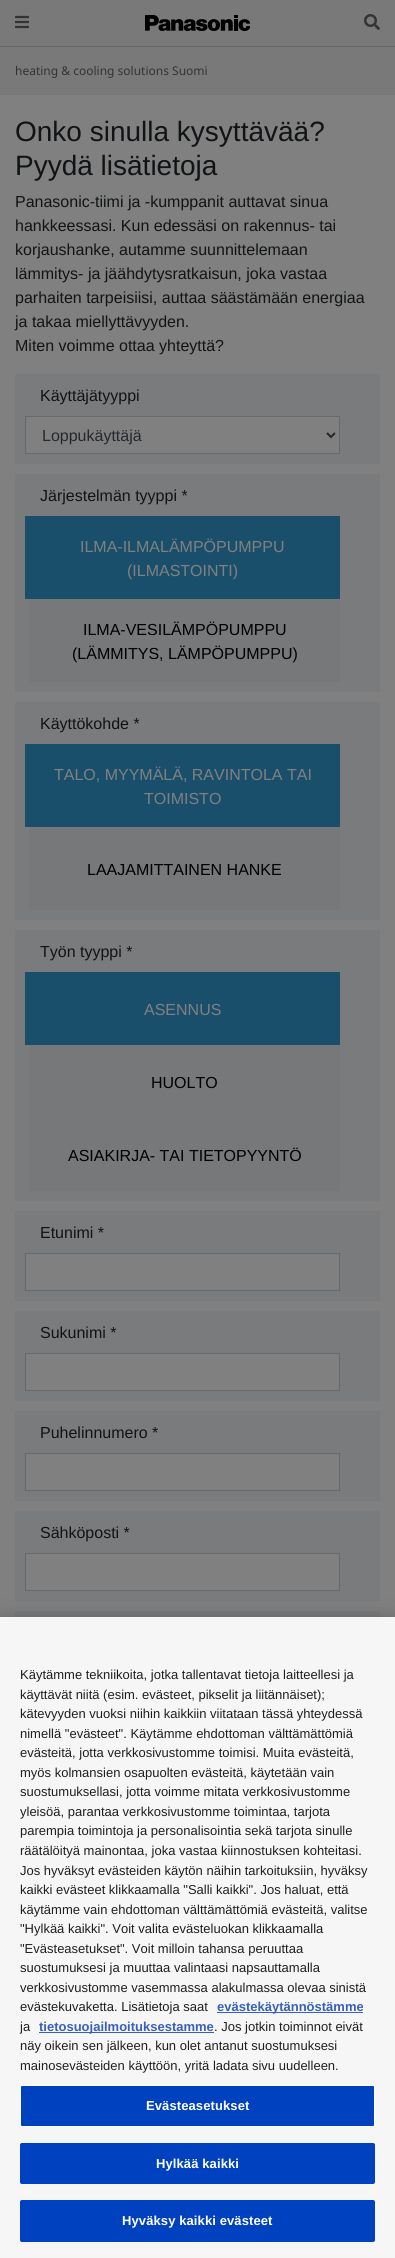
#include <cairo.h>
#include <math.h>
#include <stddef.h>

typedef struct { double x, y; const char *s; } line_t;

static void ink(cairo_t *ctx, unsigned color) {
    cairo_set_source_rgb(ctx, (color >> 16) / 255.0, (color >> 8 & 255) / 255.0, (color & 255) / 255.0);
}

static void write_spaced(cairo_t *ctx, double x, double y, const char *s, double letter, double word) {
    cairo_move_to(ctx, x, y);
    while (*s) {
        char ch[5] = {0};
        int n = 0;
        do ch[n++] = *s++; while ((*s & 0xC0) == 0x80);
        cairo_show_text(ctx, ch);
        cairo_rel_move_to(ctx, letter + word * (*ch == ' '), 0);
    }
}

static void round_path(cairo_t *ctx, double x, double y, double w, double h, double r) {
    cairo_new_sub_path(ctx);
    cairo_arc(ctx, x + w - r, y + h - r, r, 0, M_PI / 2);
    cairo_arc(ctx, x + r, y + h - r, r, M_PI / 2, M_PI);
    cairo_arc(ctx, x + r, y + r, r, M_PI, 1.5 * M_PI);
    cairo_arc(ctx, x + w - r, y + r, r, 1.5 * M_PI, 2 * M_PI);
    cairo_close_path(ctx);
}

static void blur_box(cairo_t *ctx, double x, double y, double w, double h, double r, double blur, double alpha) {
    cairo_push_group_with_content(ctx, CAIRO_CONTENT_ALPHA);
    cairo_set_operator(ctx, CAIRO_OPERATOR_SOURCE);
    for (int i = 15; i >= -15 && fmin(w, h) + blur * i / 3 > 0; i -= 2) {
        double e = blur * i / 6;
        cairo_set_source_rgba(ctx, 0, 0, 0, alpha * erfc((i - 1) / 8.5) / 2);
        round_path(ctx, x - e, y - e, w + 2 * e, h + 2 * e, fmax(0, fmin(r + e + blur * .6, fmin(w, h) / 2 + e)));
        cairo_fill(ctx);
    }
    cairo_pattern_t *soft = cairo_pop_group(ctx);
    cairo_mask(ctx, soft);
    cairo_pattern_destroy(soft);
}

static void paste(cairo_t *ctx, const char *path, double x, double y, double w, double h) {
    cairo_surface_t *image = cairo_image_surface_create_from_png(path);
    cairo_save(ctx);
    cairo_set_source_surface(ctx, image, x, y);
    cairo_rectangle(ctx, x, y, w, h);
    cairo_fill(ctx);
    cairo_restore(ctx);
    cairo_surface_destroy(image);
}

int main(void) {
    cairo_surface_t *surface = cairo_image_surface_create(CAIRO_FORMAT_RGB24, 395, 2258);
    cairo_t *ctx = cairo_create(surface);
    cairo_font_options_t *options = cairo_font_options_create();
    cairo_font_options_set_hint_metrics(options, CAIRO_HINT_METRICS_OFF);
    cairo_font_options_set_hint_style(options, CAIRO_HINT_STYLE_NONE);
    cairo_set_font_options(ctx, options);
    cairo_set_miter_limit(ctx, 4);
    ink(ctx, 0x808080);
    cairo_paint(ctx);
    ink(ctx, 0x797979);
    cairo_rectangle(ctx, 0, 0, 395, 46);
    cairo_fill(ctx);
    ink(ctx, 0x666666);
    cairo_rectangle(ctx, 0, 46, 395, 1);
    cairo_fill(ctx);
    paste(ctx, "media/1.png", 15, 15, 14, 14);
    paste(ctx, "media/2.png", 145, 15, 105, 16);
    paste(ctx, "media/3.png", 364, 14, 16, 16);
    ink(ctx, 0x797979);
    cairo_rectangle(ctx, 0, 47, 395, 48);
    cairo_fill(ctx);
    cairo_select_font_face(ctx, "Noto Sans", CAIRO_FONT_SLANT_NORMAL, CAIRO_FONT_WEIGHT_NORMAL);
    cairo_set_font_size(ctx, 12);
    ink(ctx, 0x333333);
    cairo_move_to(ctx, 15, 75);
    cairo_show_text(ctx, "heating & cooling solutions Suomi");
    cairo_select_font_face(ctx, "Liberation Sans", CAIRO_FONT_SLANT_NORMAL, CAIRO_FONT_WEIGHT_NORMAL);
    cairo_set_font_size(ctx, 28);
    ink(ctx, 0x111315);
    cairo_move_to(ctx, 15, 141);
    cairo_show_text(ctx, "Onko sinulla kysyttävää?");
    cairo_move_to(ctx, 15, 175);
    cairo_show_text(ctx, "Pyydä lisätietoja");
    cairo_set_font_size(ctx, 16);
    {
        static const line_t items[] = {
            {15, 207, "Panasonic-tiimi ja -kumppanit auttavat sinua"},
            {15, 231, "hankkeessasi. Kun edessäsi on rakennus- tai"},
            {15, 255, "korjaushanke, autamme suunnittelemaan"},
            {15, 279, "lämmitys- ja jäähdytysratkaisun, joka vastaa"},
            {15, 303, "parhaiten tarpeisiisi, auttaa säästämään energiaa"},
            {15, 327, "ja takaa miellyttävyyden."},
            {15, 351, "Miten voimme ottaa yhteyttä?"},
        };
        for (size_t i = 0; i < sizeof items / sizeof *items; i++) {
            cairo_move_to(ctx, items[i].x, items[i].y);
            cairo_show_text(ctx, items[i].s);
        }
    }
    ink(ctx, 0x7A7B7C);
    cairo_rectangle(ctx, 15, 374, 365, 90);
    cairo_fill(ctx);
    ink(ctx, 0x111315);
    cairo_move_to(ctx, 40, 401);
    cairo_show_text(ctx, "Käyttäjätyyppi");
    ink(ctx, 0x808080);
    cairo_rectangle(ctx, 25.5, 416.5, 314, 37);
    cairo_fill_preserve(ctx);
    ink(ctx, 0x676A6D);
    cairo_set_line_width(ctx, 1);
    cairo_stroke(ctx);
    cairo_new_path(ctx);
    cairo_move_to(ctx, 327, 433);
    cairo_line_to(ctx, 331, 437);
    cairo_line_to(ctx, 335, 433);
    ink(ctx, 0x25282C);
    cairo_set_line_width(ctx, 2);
    cairo_stroke(ctx);
    cairo_move_to(ctx, 42, 441);
    cairo_show_text(ctx, "Loppukäyttäjä");
    ink(ctx, 0x7A7B7C);
    cairo_rectangle(ctx, 15, 474, 365, 218);
    cairo_fill(ctx);
    ink(ctx, 0x111315);
    cairo_move_to(ctx, 40, 501);
    cairo_show_text(ctx, "Järjestelmän tyyppi *");
    ink(ctx, 0x1A4F6B);
    cairo_rectangle(ctx, 25, 516, 315, 83);
    cairo_fill(ctx);
    ink(ctx, 0x808080);
    cairo_move_to(ctx, 80, 552);
    cairo_show_text(ctx, "ILMA-ILMALÄMPÖPUMPPU");
    cairo_move_to(ctx, 127, 576);
    cairo_show_text(ctx, "(ILMASTOINTI)");
    ink(ctx, 0x767879);
    cairo_rectangle(ctx, 29, 599, 311, 83);
    cairo_fill(ctx);
    ink(ctx, 0x000000);
    cairo_move_to(ctx, 83, 635);
    cairo_show_text(ctx, "ILMA-VESILÄMPÖPUMPPU");
    cairo_move_to(ctx, 72, 659);
    cairo_show_text(ctx, "(LÄMMITYS, LÄMPÖPUMPPU)");
    ink(ctx, 0x7A7B7C);
    cairo_rectangle(ctx, 15, 702, 365, 218);
    cairo_fill(ctx);
    ink(ctx, 0x111315);
    cairo_move_to(ctx, 40, 729);
    cairo_show_text(ctx, "Käyttökohde *");
    ink(ctx, 0x1A4F6B);
    cairo_rectangle(ctx, 25, 744, 315, 83);
    cairo_fill(ctx);
    ink(ctx, 0x808080);
    cairo_move_to(ctx, 54, 780);
    cairo_show_text(ctx, "TALO, MYYMÄLÄ, RAVINTOLA TAI");
    cairo_move_to(ctx, 144, 804);
    cairo_show_text(ctx, "TOIMISTO");
    ink(ctx, 0x767879);
    cairo_rectangle(ctx, 29, 827, 311, 83);
    cairo_fill(ctx);
    ink(ctx, 0x000000);
    cairo_move_to(ctx, 87, 875);
    cairo_show_text(ctx, "LAAJAMITTAINEN HANKE");
    ink(ctx, 0x7A7B7C);
    cairo_rectangle(ctx, 15, 930, 365, 271);
    cairo_fill(ctx);
    ink(ctx, 0x111315);
    cairo_move_to(ctx, 40, 957);
    cairo_show_text(ctx, "Työn tyyppi *");
    ink(ctx, 0x1A4F6B);
    cairo_rectangle(ctx, 25, 972, 315, 73);
    cairo_fill(ctx);
    ink(ctx, 0x808080);
    cairo_move_to(ctx, 144, 1015);
    cairo_show_text(ctx, "ASENNUS");
    ink(ctx, 0x767879);
    cairo_rectangle(ctx, 29, 1045, 311, 146);
    cairo_fill(ctx);
    ink(ctx, 0x000000);
    cairo_move_to(ctx, 151, 1088);
    cairo_show_text(ctx, "HUOLTO");
    cairo_move_to(ctx, 68, 1161);
    cairo_show_text(ctx, "ASIAKIRJA- TAI TIETOPYYNTÖ");
    ink(ctx, 0x7A7B7C);
    cairo_rectangle(ctx, 15, 1211, 365, 90);
    cairo_fill(ctx);
    ink(ctx, 0x111315);
    cairo_move_to(ctx, 40, 1238);
    cairo_show_text(ctx, "Etunimi *");
    ink(ctx, 0x808080);
    cairo_rectangle(ctx, 25.5, 1253.5, 314, 37);
    cairo_fill_preserve(ctx);
    ink(ctx, 0x676A6D);
    cairo_set_line_width(ctx, 1);
    cairo_stroke(ctx);
    ink(ctx, 0x7A7B7C);
    cairo_rectangle(ctx, 15, 1311, 365, 90);
    cairo_fill(ctx);
    ink(ctx, 0x111315);
    cairo_move_to(ctx, 40, 1338);
    cairo_show_text(ctx, "Sukunimi *");
    ink(ctx, 0x808080);
    cairo_rectangle(ctx, 25.5, 1353.5, 314, 37);
    cairo_fill_preserve(ctx);
    ink(ctx, 0x676A6D);
    cairo_stroke(ctx);
    ink(ctx, 0x7A7B7C);
    cairo_rectangle(ctx, 15, 1411, 365, 90);
    cairo_fill(ctx);
    ink(ctx, 0x111315);
    cairo_move_to(ctx, 40, 1438);
    cairo_show_text(ctx, "Puhelinnumero *");
    ink(ctx, 0x808080);
    cairo_rectangle(ctx, 25.5, 1453.5, 314, 37);
    cairo_fill_preserve(ctx);
    ink(ctx, 0x676A6D);
    cairo_stroke(ctx);
    ink(ctx, 0x7A7B7C);
    cairo_rectangle(ctx, 15, 1511, 365, 90);
    cairo_fill(ctx);
    ink(ctx, 0x111315);
    cairo_move_to(ctx, 40, 1538);
    cairo_show_text(ctx, "Sähköposti *");
    ink(ctx, 0x808080);
    cairo_rectangle(ctx, 25.5, 1553.5, 314, 37);
    cairo_fill_preserve(ctx);
    ink(ctx, 0x676A6D);
    cairo_stroke(ctx);
    ink(ctx, 0x7A7B7C);
    cairo_rectangle(ctx, 15, 1611, 365, 6);
    cairo_fill(ctx);
    ink(ctx, 0x000000);
    blur_box(ctx, 0, 1617, 395, 641, 0, 9, 0.2);
    ink(ctx, 0xF6F6F6);
    cairo_rectangle(ctx, 0, 1617, 395, 641);
    cairo_fill(ctx);
    cairo_set_font_size(ctx, 13);
    ink(ctx, 0x1F1F1F);
    {
        static const line_t items[] = {
            {20, 1679, "Käytämme tekniikoita, jotka tallentavat tietoja laitteellesi ja"},
            {20, 1699, "käyttävät niitä (esim. evästeet, pikselit ja liitännäiset);"},
            {20, 1718, "kätevyyden vuoksi niihin kaikkiin viitataan tässä yhteydessä"},
            {20, 1738, "nimellä \"evästeet\". Käytämme ehdottoman välttämättömiä"},
            {20, 1757, "evästeitä, jotta verkkosivustomme toimisi. Muita evästeitä,"},
            {20, 1777, "myös kolmansien osapuolten evästeitä, käytetään vain"},
            {20, 1796, "suostumuksellasi, jotta voimme mitata verkkosivustomme"},
            {20, 1816, "yleisöä, parantaa verkkosivustomme toimintaa, tarjota"},
            {20, 1835, "parempia toimintoja ja personalisointia sekä tarjota sinulle"},
            {20, 1855, "räätälöityä mainontaa, joka vastaa kiinnostuksen kohteitasi."},
            {20, 1875, "Jos hyväksyt evästeiden käytön näihin tarkoituksiin, hyväksy"},
            {20, 1894, "kaikki evästeet klikkaamalla \"Salli kaikki\". Jos haluat, että"},
            {20, 1914, "käytämme vain ehdottoman välttämättömiä evästeitä, valitse"},
            {20, 1933, "\"Hylkää kaikki\". Voit valita evästeluokan klikkaamalla"},
            {20, 1953, "\"Evästeasetukset\". Voit milloin tahansa peruuttaa"},
            {20, 1972, "suostumuksesi ja muuttaa valintaasi napsauttamalla"},
            {20, 1992, "verkkosivustomme vasemmassa alakulmassa olevaa sinistä"},
            {20, 2011, "evästekuvaketta. Lisätietoja saat"},
        };
        for (size_t i = 0; i < sizeof items / sizeof *items; i++) {
            cairo_move_to(ctx, items[i].x, items[i].y);
            cairo_show_text(ctx, items[i].s);
        }
    }
    ink(ctx, 0x3860BE);
    cairo_rectangle(ctx, 217, 2012, 146, 1);
    cairo_fill(ctx);
    cairo_select_font_face(ctx, "Liberation Sans", CAIRO_FONT_SLANT_NORMAL, CAIRO_FONT_WEIGHT_BOLD);
    cairo_move_to(ctx, 217, 2011);
    cairo_show_text(ctx, "evästekäytännöstämme");
    cairo_select_font_face(ctx, "Liberation Sans", CAIRO_FONT_SLANT_NORMAL, CAIRO_FONT_WEIGHT_NORMAL);
    ink(ctx, 0x1F1F1F);
    cairo_move_to(ctx, 20, 2031);
    cairo_show_text(ctx, "ja");
    ink(ctx, 0x3860BE);
    cairo_rectangle(ctx, 39, 2032, 175, 1);
    cairo_fill(ctx);
    cairo_select_font_face(ctx, "Liberation Sans", CAIRO_FONT_SLANT_NORMAL, CAIRO_FONT_WEIGHT_BOLD);
    cairo_move_to(ctx, 39, 2031);
    cairo_show_text(ctx, "tietosuojailmoituksestamme");
    cairo_select_font_face(ctx, "Liberation Sans", CAIRO_FONT_SLANT_NORMAL, CAIRO_FONT_WEIGHT_NORMAL);
    ink(ctx, 0x1F1F1F);
    {
        static const line_t items[] = {
            {214, 2031, ". Jos jotkin toiminnot eivät"},
            {20, 2050, "näy oikein sen jälkeen, kun olet antanut suostumuksesi"},
            {20, 2070, "mainosevästeiden käyttöön, yritä ladata sivu uudelleen."},
        };
        for (size_t i = 0; i < sizeof items / sizeof *items; i++) {
            cairo_move_to(ctx, items[i].x, items[i].y);
            cairo_show_text(ctx, items[i].s);
        }
    }
    ink(ctx, 0x0041C0);
    round_path(ctx, 20.5, 2085.5, 354, 41, 1.5);
    cairo_fill_preserve(ctx);
    ink(ctx, 0xFFFFFF);
    cairo_stroke(ctx);
    cairo_select_font_face(ctx, "Liberation Sans", CAIRO_FONT_SLANT_NORMAL, CAIRO_FONT_WEIGHT_BOLD);
    write_spaced(ctx, 146, 2110, "Evästeasetukset", 0.1, 0);
    ink(ctx, 0x0041C0);
    round_path(ctx, 20.5, 2143.5, 354, 40, 1.5);
    cairo_fill_preserve(ctx);
    cairo_stroke(ctx);
    ink(ctx, 0xFFFFFF);
    write_spaced(ctx, 156, 2168, "Hylkää kaikki", 0.1, 0);
    ink(ctx, 0x0041C0);
    round_path(ctx, 20.5, 2200.5, 354, 41, 1.5);
    cairo_fill_preserve(ctx);
    cairo_stroke(ctx);
    ink(ctx, 0xFFFFFF);
    write_spaced(ctx, 122, 2225, "Hyväksy kaikki evästeet", 0.1, 0);
    cairo_surface_write_to_png(surface, "image.png");
    cairo_font_options_destroy(options);
    cairo_destroy(ctx);
    cairo_surface_destroy(surface);
    return 0;
}
